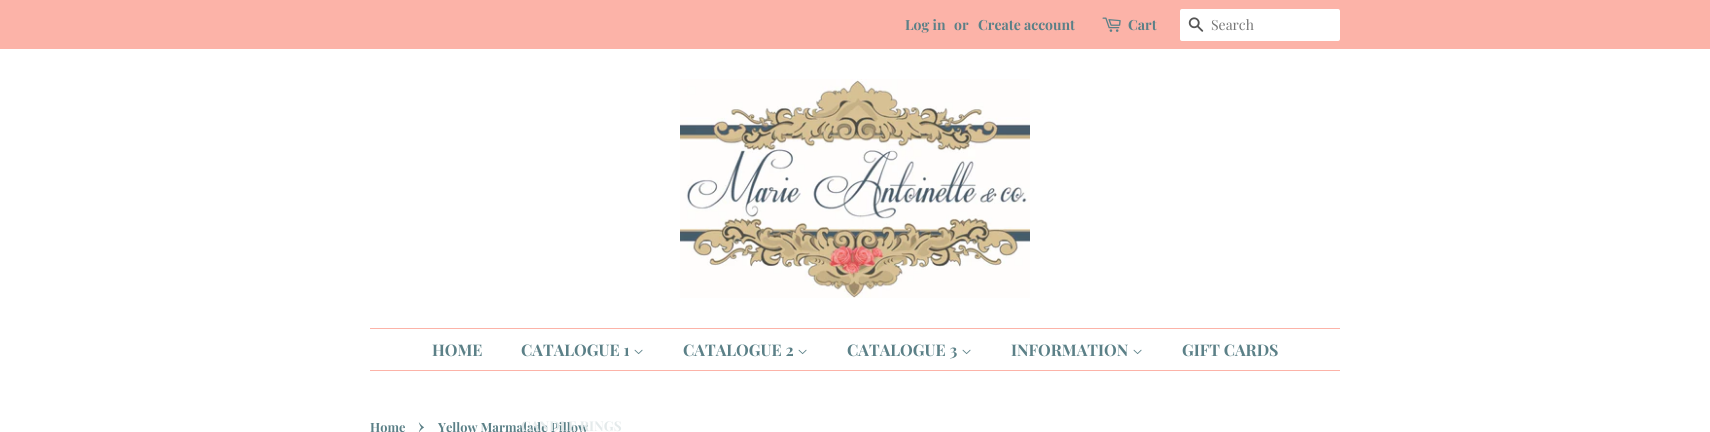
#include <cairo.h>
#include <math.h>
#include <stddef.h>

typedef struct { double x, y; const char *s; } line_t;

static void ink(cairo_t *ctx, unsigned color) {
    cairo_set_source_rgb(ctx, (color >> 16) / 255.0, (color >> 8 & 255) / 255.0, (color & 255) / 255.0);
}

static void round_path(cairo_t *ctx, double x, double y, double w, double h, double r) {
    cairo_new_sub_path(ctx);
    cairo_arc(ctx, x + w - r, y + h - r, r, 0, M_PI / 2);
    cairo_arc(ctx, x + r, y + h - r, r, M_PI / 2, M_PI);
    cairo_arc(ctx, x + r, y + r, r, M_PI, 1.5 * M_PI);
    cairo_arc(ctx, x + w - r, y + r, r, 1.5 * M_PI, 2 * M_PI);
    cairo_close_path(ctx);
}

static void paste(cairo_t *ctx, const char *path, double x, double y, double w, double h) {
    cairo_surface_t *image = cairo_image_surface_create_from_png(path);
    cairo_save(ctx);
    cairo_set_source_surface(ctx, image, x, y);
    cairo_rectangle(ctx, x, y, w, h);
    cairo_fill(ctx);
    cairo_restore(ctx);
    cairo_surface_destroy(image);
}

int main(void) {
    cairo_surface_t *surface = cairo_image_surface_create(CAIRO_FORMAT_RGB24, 1710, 432);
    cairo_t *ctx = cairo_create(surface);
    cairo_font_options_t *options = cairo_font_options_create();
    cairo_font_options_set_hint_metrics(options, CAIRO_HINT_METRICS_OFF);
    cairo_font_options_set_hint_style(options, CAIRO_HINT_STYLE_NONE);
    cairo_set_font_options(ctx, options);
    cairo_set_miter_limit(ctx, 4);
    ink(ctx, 0xFFFFFF);
    cairo_paint(ctx);
    ink(ctx, 0xFCB3A8);
    cairo_rectangle(ctx, 0, 0, 1710, 49);
    cairo_fill(ctx);
    cairo_select_font_face(ctx, "Playfair Display", CAIRO_FONT_SLANT_NORMAL, CAIRO_FONT_WEIGHT_BOLD);
    cairo_set_font_size(ctx, 14);
    ink(ctx, 0x5B8087);
    {
        static const line_t items[] = {
            {905, 30, "Log in"},
            {954, 30, "or"},
            {978, 30, "Create account"},
        };
        for (size_t i = 0; i < sizeof items / sizeof *items; i++) {
            cairo_move_to(ctx, items[i].x, items[i].y);
            cairo_show_text(ctx, items[i].s);
        }
    }
    paste(ctx, "media/1.png", 1102, 17, 19, 15);
    cairo_move_to(ctx, 1128, 30);
    cairo_show_text(ctx, "Cart");
    ink(ctx, 0xFFFFFF);
    round_path(ctx, 1180, 9, 160, 32, 2);
    cairo_fill(ctx);
    paste(ctx, "media/2.png", 1188, 17, 16, 15);
    cairo_select_font_face(ctx, "Playfair Display", CAIRO_FONT_SLANT_NORMAL, CAIRO_FONT_WEIGHT_NORMAL);
    ink(ctx, 0x757575);
    cairo_move_to(ctx, 1211, 30);
    cairo_show_text(ctx, "Search");
    paste(ctx, "media/3.png", 680, 79, 350, 219);
    ink(ctx, 0xFCB3A8);
    cairo_rectangle(ctx, 370, 328, 970, 1);
    cairo_fill(ctx);
    cairo_rectangle(ctx, 370, 370, 970, 1);
    cairo_fill(ctx);
    cairo_select_font_face(ctx, "Playfair Display", CAIRO_FONT_SLANT_NORMAL, CAIRO_FONT_WEIGHT_BOLD);
    cairo_set_font_size(ctx, 16);
    ink(ctx, 0x5B8087);
    cairo_move_to(ctx, 432, 356);
    cairo_show_text(ctx, "HOME");
    cairo_move_to(ctx, 521, 356);
    cairo_show_text(ctx, "CATALOGUE 1");
    paste(ctx, "media/4.png", 634, 349, 9, 6);
    cairo_set_font_size(ctx, 12.75);
    cairo_move_to(ctx, 438, 432);
    cairo_show_text(ctx, "Yellow Marmalade Pillow");
    cairo_set_font_size(ctx, 13.5);
    ink(ctx, 0xE4EAEB);
    cairo_move_to(ctx, 521, 431);
    cairo_show_text(ctx, "CANDLE RINGS");
    cairo_set_font_size(ctx, 16);
    ink(ctx, 0x5B8087);
    cairo_move_to(ctx, 683, 356);
    cairo_show_text(ctx, "CATALOGUE 2");
    paste(ctx, "media/4.png", 798, 349, 9, 6);
    cairo_move_to(ctx, 847, 356);
    cairo_show_text(ctx, "CATALOGUE 3");
    paste(ctx, "media/4.png", 962, 349, 9, 6);
    cairo_move_to(ctx, 1011, 356);
    cairo_show_text(ctx, "INFORMATION");
    paste(ctx, "media/4.png", 1133, 349, 9, 6);
    cairo_move_to(ctx, 1182, 356);
    cairo_show_text(ctx, "GIFT CARDS");
    cairo_set_font_size(ctx, 12.75);
    cairo_move_to(ctx, 370, 432);
    cairo_show_text(ctx, "Home");
    cairo_set_font_size(ctx, 18);
    cairo_move_to(ctx, 418, 432);
    cairo_show_text(ctx, "›");
    cairo_surface_write_to_png(surface, "image.png");
    cairo_font_options_destroy(options);
    cairo_destroy(ctx);
    cairo_surface_destroy(surface);
    return 0;
}
